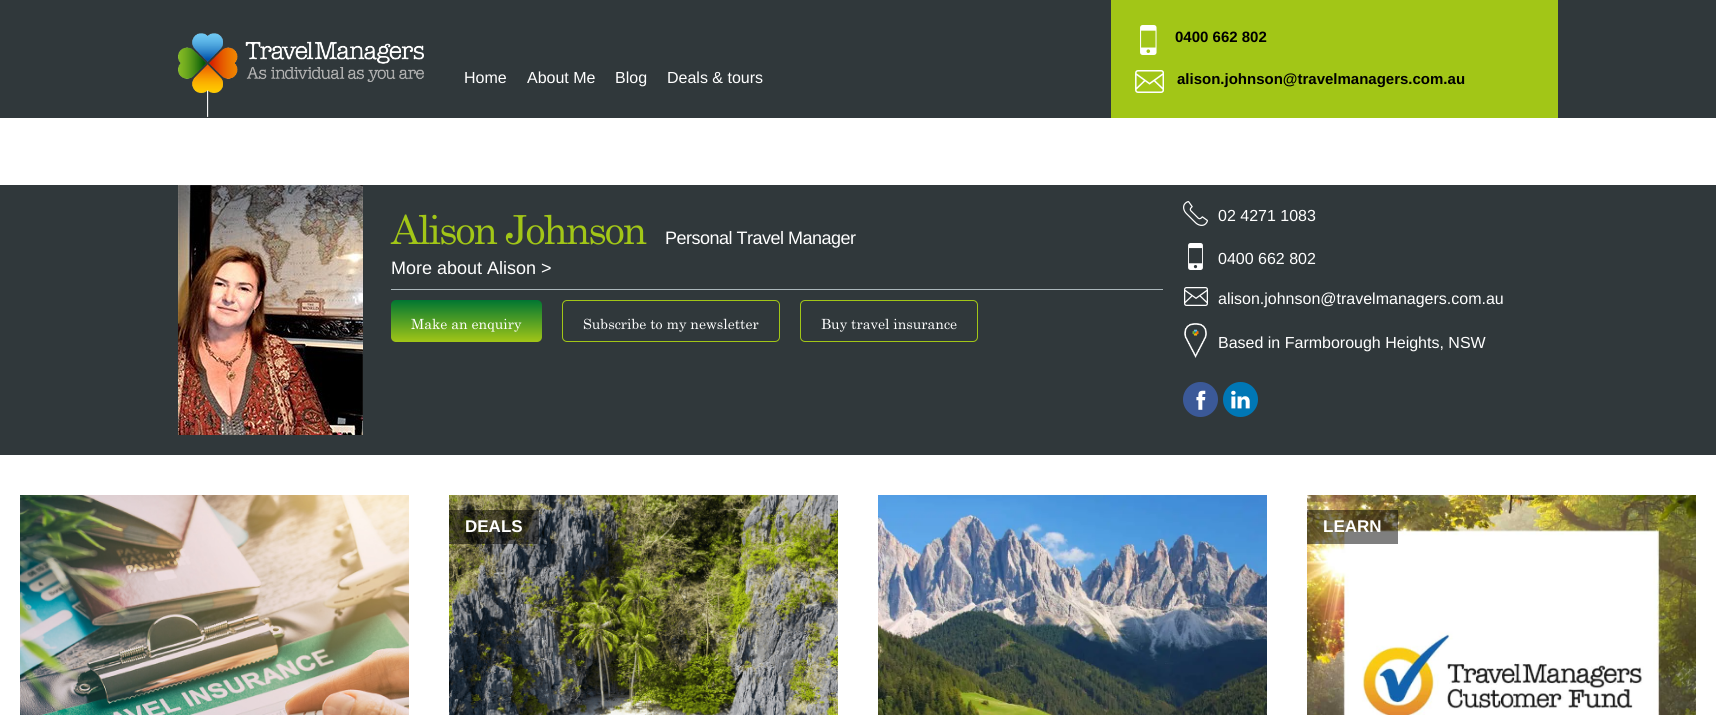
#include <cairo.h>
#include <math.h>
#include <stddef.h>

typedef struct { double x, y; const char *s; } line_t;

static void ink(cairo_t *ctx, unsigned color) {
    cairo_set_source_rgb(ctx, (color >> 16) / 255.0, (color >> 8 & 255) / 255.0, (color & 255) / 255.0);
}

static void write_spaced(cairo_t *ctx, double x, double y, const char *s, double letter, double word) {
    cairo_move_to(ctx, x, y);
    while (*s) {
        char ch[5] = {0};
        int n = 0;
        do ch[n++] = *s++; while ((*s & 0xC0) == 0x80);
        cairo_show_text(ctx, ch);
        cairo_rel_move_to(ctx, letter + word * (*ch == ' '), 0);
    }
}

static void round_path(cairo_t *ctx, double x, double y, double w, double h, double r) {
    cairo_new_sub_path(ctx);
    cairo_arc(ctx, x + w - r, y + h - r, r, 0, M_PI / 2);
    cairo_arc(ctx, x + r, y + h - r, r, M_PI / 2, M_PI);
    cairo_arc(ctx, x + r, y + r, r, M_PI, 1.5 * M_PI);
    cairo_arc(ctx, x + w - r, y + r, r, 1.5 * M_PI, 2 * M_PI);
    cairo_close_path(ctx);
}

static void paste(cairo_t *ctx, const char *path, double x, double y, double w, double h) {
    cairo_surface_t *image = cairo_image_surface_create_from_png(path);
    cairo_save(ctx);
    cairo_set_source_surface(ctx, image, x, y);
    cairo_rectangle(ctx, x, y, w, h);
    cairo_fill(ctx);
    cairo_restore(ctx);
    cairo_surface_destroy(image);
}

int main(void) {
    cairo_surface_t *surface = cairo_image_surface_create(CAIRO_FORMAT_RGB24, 1716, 715);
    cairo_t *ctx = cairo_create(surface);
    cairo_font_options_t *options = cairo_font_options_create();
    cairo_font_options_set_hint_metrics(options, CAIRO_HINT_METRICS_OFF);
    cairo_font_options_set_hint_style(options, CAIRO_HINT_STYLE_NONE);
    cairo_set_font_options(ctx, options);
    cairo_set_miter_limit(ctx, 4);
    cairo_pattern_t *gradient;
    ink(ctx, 0xFFFFFF);
    cairo_paint(ctx);
    ink(ctx, 0x30383B);
    cairo_rectangle(ctx, 0, 0, 1716, 118);
    cairo_fill(ctx);
    paste(ctx, "media/1.png", 178, 33, 246, 84);
    cairo_select_font_face(ctx, "Liberation Sans", CAIRO_FONT_SLANT_NORMAL, CAIRO_FONT_WEIGHT_NORMAL);
    cairo_set_font_size(ctx, 16);
    ink(ctx, 0xFFFFFF);
    {
        static const line_t items[] = {
            {464, 83, "Home"},
            {527, 83, "About Me"},
            {615, 83, "Blog"},
            {667, 83, "Deals & tours"},
        };
        for (size_t i = 0; i < sizeof items / sizeof *items; i++) {
            cairo_move_to(ctx, items[i].x, items[i].y);
            cairo_show_text(ctx, items[i].s);
        }
    }
    ink(ctx, 0xA2C617);
    cairo_rectangle(ctx, 1111, 0, 447, 118);
    cairo_fill(ctx);
    paste(ctx, "media/2.png", 1140, 25, 17, 30);
    cairo_select_font_face(ctx, "Liberation Sans", CAIRO_FONT_SLANT_NORMAL, CAIRO_FONT_WEIGHT_BOLD);
    cairo_set_font_size(ctx, 15);
    ink(ctx, 0x000000);
    cairo_move_to(ctx, 1175, 42);
    cairo_show_text(ctx, "0400 662 802");
    paste(ctx, "media/3.png", 1135, 70, 29, 23);
    cairo_move_to(ctx, 1177, 84);
    cairo_show_text(ctx, "alison.johnson@travelmanagers.com.au");
    ink(ctx, 0x30383B);
    cairo_rectangle(ctx, 0, 185, 1716, 270);
    cairo_fill(ctx);
    paste(ctx, "media/4.png", 178, 185, 185, 250);
    cairo_select_font_face(ctx, "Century", CAIRO_FONT_SLANT_NORMAL, CAIRO_FONT_WEIGHT_NORMAL);
    cairo_set_font_size(ctx, 40);
    ink(ctx, 0xA2C617);
    write_spaced(ctx, 391, 244, "Alison Johnson", -2, 0);
    cairo_select_font_face(ctx, "Liberation Sans", CAIRO_FONT_SLANT_NORMAL, CAIRO_FONT_WEIGHT_NORMAL);
    cairo_set_font_size(ctx, 18);
    ink(ctx, 0xFFFFFF);
    write_spaced(ctx, 665, 244, "Personal Travel Manager", -0.5, 0);
    cairo_move_to(ctx, 391, 274);
    cairo_show_text(ctx, "More about Alison >");
    ink(ctx, 0xABB7BB);
    cairo_rectangle(ctx, 391, 289, 772, 1);
    cairo_fill(ctx);
    gradient = cairo_pattern_create_linear(467, 300, 467, 342);
    cairo_pattern_add_color_stop_rgba(gradient, 0, 0, 0.463, 0.196, 1);
    cairo_pattern_add_color_stop_rgba(gradient, 1, 0.635, 0.776, 0.09, 1);
    cairo_set_source(ctx, gradient);
    cairo_pattern_destroy(gradient);
    round_path(ctx, 391, 300, 151, 42, 5);
    cairo_fill(ctx);
    cairo_select_font_face(ctx, "Century", CAIRO_FONT_SLANT_NORMAL, CAIRO_FONT_WEIGHT_NORMAL);
    cairo_set_font_size(ctx, 14);
    ink(ctx, 0xFFFFFF);
    cairo_move_to(ctx, 411, 329);
    cairo_show_text(ctx, "Make an enquiry");
    round_path(ctx, 562.5, 300.5, 217, 41, 4.5);
    ink(ctx, 0xA2C617);
    cairo_set_line_width(ctx, 1);
    cairo_stroke(ctx);
    ink(ctx, 0xFFFFFF);
    cairo_move_to(ctx, 583, 329);
    cairo_show_text(ctx, "Subscribe to my newsletter");
    round_path(ctx, 800.5, 300.5, 177, 41, 4.5);
    ink(ctx, 0xA2C617);
    cairo_stroke(ctx);
    ink(ctx, 0xFFFFFF);
    cairo_move_to(ctx, 821, 329);
    cairo_show_text(ctx, "Buy travel insurance");
    paste(ctx, "media/5.png", 1183, 201, 25, 25);
    cairo_select_font_face(ctx, "Liberation Sans", CAIRO_FONT_SLANT_NORMAL, CAIRO_FONT_WEIGHT_NORMAL);
    cairo_set_font_size(ctx, 16);
    cairo_move_to(ctx, 1218, 221);
    cairo_show_text(ctx, "02 4271 1083");
    paste(ctx, "media/6.png", 1188, 243, 15, 27);
    cairo_move_to(ctx, 1218, 264);
    cairo_show_text(ctx, "0400 662 802");
    paste(ctx, "media/7.png", 1184, 287, 24, 19);
    cairo_move_to(ctx, 1218, 304);
    cairo_show_text(ctx, "alison.johnson@travelmanagers.com.au");
    paste(ctx, "media/8.png", 1184, 323, 23, 35);
    cairo_move_to(ctx, 1218, 348);
    cairo_show_text(ctx, "Based in Farmborough Heights, NSW");
    paste(ctx, "media/9.png", 1183, 382, 35, 35);
    paste(ctx, "media/10.png", 1223, 382, 35, 35);
    paste(ctx, "media/11.png", 20, 495, 389, 220);
    paste(ctx, "media/12.png", 449, 495, 389, 220);
    cairo_set_source_rgba(ctx, 0, 0, 0, 0.5);
    cairo_rectangle(ctx, 449, 510, 90, 34);
    cairo_fill(ctx);
    cairo_select_font_face(ctx, "Liberation Sans", CAIRO_FONT_SLANT_NORMAL, CAIRO_FONT_WEIGHT_BOLD);
    cairo_set_font_size(ctx, 17);
    ink(ctx, 0xFFFFFF);
    cairo_move_to(ctx, 465, 532);
    cairo_show_text(ctx, "DEALS");
    paste(ctx, "media/13.png", 878, 495, 389, 220);
    paste(ctx, "media/14.png", 1307, 495, 389, 220);
    cairo_set_source_rgba(ctx, 0, 0, 0, 0.5);
    cairo_rectangle(ctx, 1307, 510, 91, 34);
    cairo_fill(ctx);
    ink(ctx, 0xFFFFFF);
    cairo_move_to(ctx, 1323, 532);
    cairo_show_text(ctx, "LEARN");
    cairo_surface_write_to_png(surface, "image.png");
    cairo_font_options_destroy(options);
    cairo_destroy(ctx);
    cairo_surface_destroy(surface);
    return 0;
}
